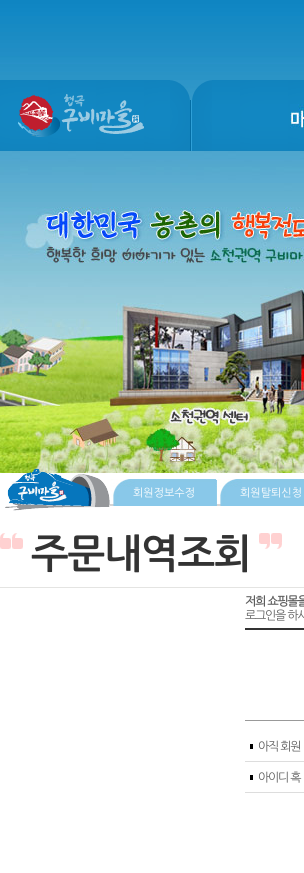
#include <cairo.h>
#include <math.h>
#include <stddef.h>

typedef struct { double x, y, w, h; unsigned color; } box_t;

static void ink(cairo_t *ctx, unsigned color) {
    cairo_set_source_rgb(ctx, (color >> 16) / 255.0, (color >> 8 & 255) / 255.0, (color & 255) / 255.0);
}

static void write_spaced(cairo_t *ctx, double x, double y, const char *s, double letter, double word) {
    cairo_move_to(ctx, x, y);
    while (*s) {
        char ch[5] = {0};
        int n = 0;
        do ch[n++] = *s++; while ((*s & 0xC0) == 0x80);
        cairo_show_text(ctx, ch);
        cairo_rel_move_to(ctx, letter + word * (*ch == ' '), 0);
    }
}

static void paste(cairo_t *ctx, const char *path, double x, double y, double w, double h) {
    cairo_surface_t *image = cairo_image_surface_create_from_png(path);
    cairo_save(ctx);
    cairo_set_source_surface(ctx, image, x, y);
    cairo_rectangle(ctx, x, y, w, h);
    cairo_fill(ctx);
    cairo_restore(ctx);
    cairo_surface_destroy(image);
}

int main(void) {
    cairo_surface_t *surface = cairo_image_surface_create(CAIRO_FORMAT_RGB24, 304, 873);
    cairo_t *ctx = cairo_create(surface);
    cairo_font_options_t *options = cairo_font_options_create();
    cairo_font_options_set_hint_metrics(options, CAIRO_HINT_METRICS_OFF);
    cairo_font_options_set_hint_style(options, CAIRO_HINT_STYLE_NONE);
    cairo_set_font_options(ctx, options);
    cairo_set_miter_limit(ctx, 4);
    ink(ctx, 0xFFFFFF);
    cairo_paint(ctx);
    paste(ctx, "media/1.png", 0, 0, 304, 80);
    paste(ctx, "media/2.png", 0, 80, 304, 71);
    paste(ctx, "media/3.png", 18, 94, 126, 43);
    paste(ctx, "media/4.png", 170, 80, 42, 71);
    paste(ctx, "media/5.png", 290, 104, 14, 24);
    paste(ctx, "media/6.png", 0, 151, 304, 322);
    paste(ctx, "media/7.png", 5, 468, 105, 43);
    paste(ctx, "media/8.png", 110, 479, 107, 27);
    cairo_select_font_face(ctx, "NanumGothic", CAIRO_FONT_SLANT_NORMAL, CAIRO_FONT_WEIGHT_NORMAL);
    cairo_set_font_size(ctx, 11);
    ink(ctx, 0xFFFFFF);
    cairo_move_to(ctx, 133, 496);
    cairo_show_text(ctx, "회원정보수정");
    paste(ctx, "media/9.png", 217, 479, 87, 27);
    cairo_move_to(ctx, 240, 496);
    cairo_show_text(ctx, "회원탈퇴신청");
    paste(ctx, "media/10.png", 0, 533, 23, 16);
    cairo_select_font_face(ctx, "NanumGothic", CAIRO_FONT_SLANT_NORMAL, CAIRO_FONT_WEIGHT_BOLD);
    cairo_set_font_size(ctx, 40);
    ink(ctx, 0x333333);
    write_spaced(ctx, 31, 566, "주문내역조회", -1, 0);
    paste(ctx, "media/11.png", 259, 533, 23, 16);
    ink(ctx, 0xE4E4E2);
    cairo_rectangle(ctx, 0, 587, 304, 1);
    cairo_fill(ctx);
    cairo_select_font_face(ctx, "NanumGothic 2", CAIRO_FONT_SLANT_NORMAL, CAIRO_FONT_WEIGHT_BOLD);
    cairo_set_font_size(ctx, 12);
    ink(ctx, 0x5D5D5D);
    write_spaced(ctx, 245, 605, "저희 쇼핑몰을", -1.25, 0);
    cairo_select_font_face(ctx, "NanumGothic", CAIRO_FONT_SLANT_NORMAL, CAIRO_FONT_WEIGHT_NORMAL);
    write_spaced(ctx, 245, 619, "로그인을 하시", -1.25, 0);
    {
        static const box_t items[] = {
            {245, 628, 59, 2, 0x333333},
            {245, 720, 59, 1, 0x999999},
            {250, 744, 3, 5, 0x000000},
        };
        for (size_t i = 0; i < sizeof items / sizeof *items; i++) {
            ink(ctx, items[i].color);
            cairo_rectangle(ctx, items[i].x, items[i].y, items[i].w, items[i].h);
            cairo_fill(ctx);
        }
    }
    ink(ctx, 0x5D5D5D);
    write_spaced(ctx, 258, 750, "아직 회원", -1.25, 0);
    ink(ctx, 0xDDDDDD);
    cairo_rectangle(ctx, 245, 761, 59, 1);
    cairo_fill(ctx);
    ink(ctx, 0x000000);
    cairo_rectangle(ctx, 250, 775, 3, 5);
    cairo_fill(ctx);
    ink(ctx, 0x5D5D5D);
    write_spaced(ctx, 258, 781, "아이디 혹", -1.25, 0);
    ink(ctx, 0xDDDDDD);
    cairo_rectangle(ctx, 245, 792, 59, 1);
    cairo_fill(ctx);
    cairo_surface_write_to_png(surface, "image.png");
    cairo_font_options_destroy(options);
    cairo_destroy(ctx);
    cairo_surface_destroy(surface);
    return 0;
}
